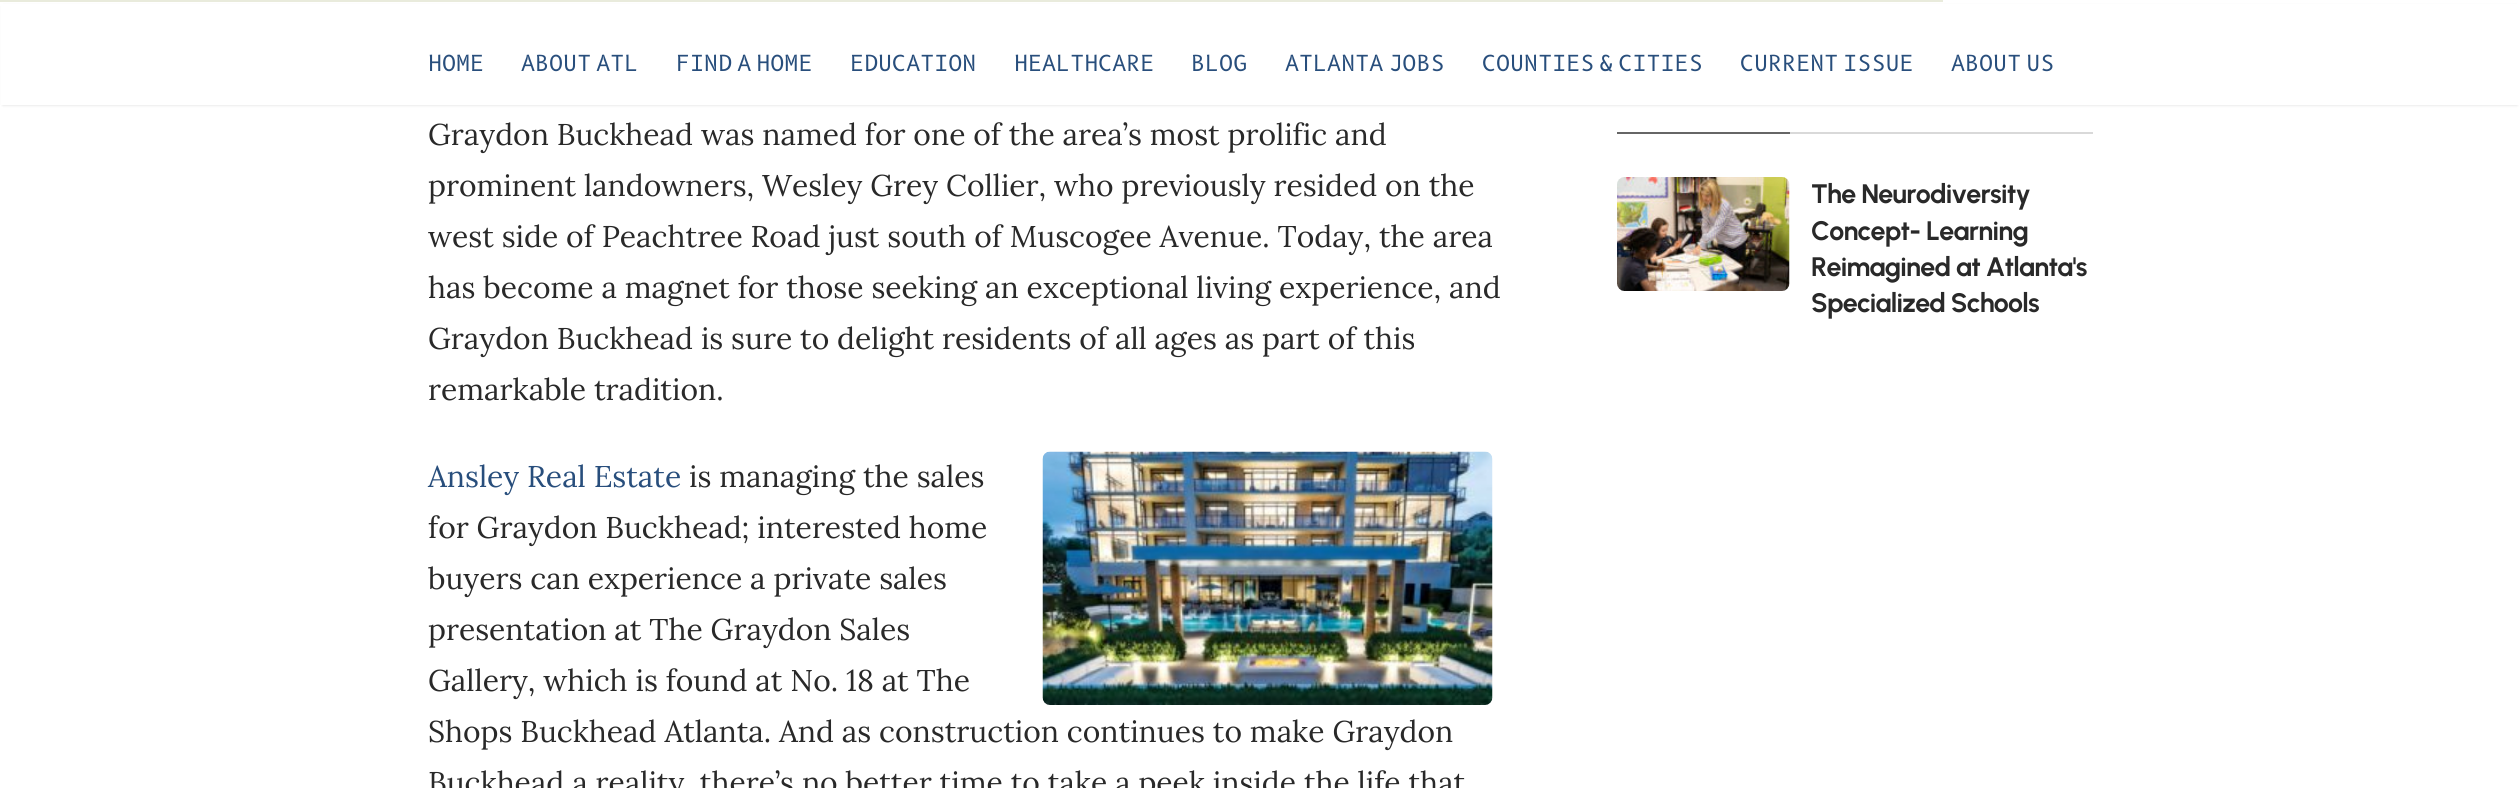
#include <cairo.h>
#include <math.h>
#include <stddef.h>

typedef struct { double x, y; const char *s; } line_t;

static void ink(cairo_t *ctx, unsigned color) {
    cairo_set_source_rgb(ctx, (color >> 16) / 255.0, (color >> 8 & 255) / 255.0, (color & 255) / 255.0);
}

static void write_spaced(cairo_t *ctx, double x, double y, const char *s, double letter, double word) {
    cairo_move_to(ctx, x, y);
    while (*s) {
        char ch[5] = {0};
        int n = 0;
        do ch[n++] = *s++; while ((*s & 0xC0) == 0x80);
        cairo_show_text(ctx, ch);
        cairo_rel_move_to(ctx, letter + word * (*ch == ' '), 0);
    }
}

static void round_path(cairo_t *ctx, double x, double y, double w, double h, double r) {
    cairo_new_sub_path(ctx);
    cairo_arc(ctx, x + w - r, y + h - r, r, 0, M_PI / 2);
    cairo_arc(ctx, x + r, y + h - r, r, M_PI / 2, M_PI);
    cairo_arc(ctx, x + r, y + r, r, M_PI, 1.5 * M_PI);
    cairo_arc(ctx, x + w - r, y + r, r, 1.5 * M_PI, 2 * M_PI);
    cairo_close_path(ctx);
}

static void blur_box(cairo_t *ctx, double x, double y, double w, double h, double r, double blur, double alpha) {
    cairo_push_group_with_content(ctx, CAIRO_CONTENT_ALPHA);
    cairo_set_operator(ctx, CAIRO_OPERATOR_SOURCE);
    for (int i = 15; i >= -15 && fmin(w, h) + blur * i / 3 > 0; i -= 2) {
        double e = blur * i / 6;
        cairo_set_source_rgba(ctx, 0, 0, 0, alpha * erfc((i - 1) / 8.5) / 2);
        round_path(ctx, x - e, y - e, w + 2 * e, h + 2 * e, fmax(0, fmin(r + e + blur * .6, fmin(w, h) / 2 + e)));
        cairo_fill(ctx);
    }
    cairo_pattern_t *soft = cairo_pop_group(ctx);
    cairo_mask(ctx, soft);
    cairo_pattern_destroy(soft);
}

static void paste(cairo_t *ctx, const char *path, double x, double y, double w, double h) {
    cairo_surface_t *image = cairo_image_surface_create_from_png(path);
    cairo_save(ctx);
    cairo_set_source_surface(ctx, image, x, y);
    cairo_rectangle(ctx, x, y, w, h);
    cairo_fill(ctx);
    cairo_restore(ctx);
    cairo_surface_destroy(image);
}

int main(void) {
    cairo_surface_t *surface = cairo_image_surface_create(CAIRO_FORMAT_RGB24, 2519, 788);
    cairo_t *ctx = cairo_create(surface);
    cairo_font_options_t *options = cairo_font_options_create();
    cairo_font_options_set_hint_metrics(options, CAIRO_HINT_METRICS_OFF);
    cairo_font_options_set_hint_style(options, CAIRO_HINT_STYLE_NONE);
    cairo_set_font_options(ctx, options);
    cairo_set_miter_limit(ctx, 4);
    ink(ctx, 0xFFFFFF);
    cairo_paint(ctx);
    ink(ctx, 0x000000);
    blur_box(ctx, 3, 6, 2514, 99, 0, 1.5, 0.15);
    ink(ctx, 0xE9EBDC);
    cairo_rectangle(ctx, 0, 0, 1943, 2);
    cairo_fill(ctx);
    ink(ctx, 0xFFFFFF);
    cairo_rectangle(ctx, 1, 4, 2518, 101);
    cairo_fill(ctx);
    cairo_select_font_face(ctx, "B612 Mono", CAIRO_FONT_SLANT_NORMAL, CAIRO_FONT_WEIGHT_NORMAL);
    cairo_set_font_size(ctx, 21.6);
    ink(ctx, 0x284E7C);
    cairo_move_to(ctx, 428, 71);
    cairo_show_text(ctx, "HOME");
    write_spaced(ctx, 521, 71, "ABOUT ATL", 0, -9);
    write_spaced(ctx, 676, 71, "FIND A HOME", 0, -9);
    {
        static const line_t items[] = {
            {850, 71, "EDUCATION"},
            {1014, 71, "HEALTHCARE"},
            {1191, 71, "BLOG"},
        };
        for (size_t i = 0; i < sizeof items / sizeof *items; i++) {
            cairo_move_to(ctx, items[i].x, items[i].y);
            cairo_show_text(ctx, items[i].s);
        }
    }
    {
        static const line_t items[] = {
            {1285, 71, "ATLANTA JOBS"},
            {1482, 71, "COUNTIES & CITIES"},
            {1740, 71, "CURRENT ISSUE"},
            {1951, 71, "ABOUT US"},
        };
        for (size_t i = 0; i < sizeof items / sizeof *items; i++) {
            write_spaced(ctx, items[i].x, items[i].y, items[i].s, 0, -9);
        }
    }
    cairo_select_font_face(ctx, "Lora", CAIRO_FONT_SLANT_NORMAL, CAIRO_FONT_WEIGHT_NORMAL);
    cairo_set_font_size(ctx, 30);
    ink(ctx, 0x292929);
    {
        static const line_t items[] = {
            {428, 145, "Graydon Buckhead was named for one of the area’s most prolific and"},
            {428, 196, "prominent landowners, Wesley Grey Collier, who previously resided on the"},
            {428, 247, "west side of Peachtree Road just south of Muscogee Avenue. Today, the area"},
            {428, 298, "has become a magnet for those seeking an exceptional living experience, and"},
            {428, 349, "Graydon Buckhead is sure to delight residents of all ages as part of this"},
            {428, 400, "remarkable tradition."},
        };
        for (size_t i = 0; i < sizeof items / sizeof *items; i++) {
            cairo_move_to(ctx, items[i].x, items[i].y);
            cairo_show_text(ctx, items[i].s);
        }
    }
    ink(ctx, 0x284E7C);
    cairo_move_to(ctx, 428, 487);
    cairo_show_text(ctx, "Ansley Real Estate");
    paste(ctx, "media/1.png", 1042, 451, 451, 254);
    ink(ctx, 0x292929);
    {
        static const line_t items[] = {
            {689, 487, "is managing the sales"},
            {428, 538, "for Graydon Buckhead; interested home"},
            {428, 589, "buyers can experience a private sales"},
            {428, 640, "presentation at The Graydon Sales"},
            {428, 691, "Gallery, which is found at No. 18 at The"},
            {428, 742, "Shops Buckhead Atlanta. And as construction continues to make Graydon"},
            {428, 793, "Buckhead a reality, there’s no better time to take a peek inside the life that"},
        };
        for (size_t i = 0; i < sizeof items / sizeof *items; i++) {
            cairo_move_to(ctx, items[i].x, items[i].y);
            cairo_show_text(ctx, items[i].s);
        }
    }
    ink(ctx, 0xD9D9D9);
    cairo_rectangle(ctx, 1790, 132, 303, 2);
    cairo_fill(ctx);
    ink(ctx, 0x666666);
    cairo_rectangle(ctx, 1617, 132, 173, 2);
    cairo_fill(ctx);
    paste(ctx, "media/2.png", 1617, 177, 173, 114);
    cairo_select_font_face(ctx, "Urbanist", CAIRO_FONT_SLANT_NORMAL, CAIRO_FONT_WEIGHT_BOLD);
    cairo_set_font_size(ctx, 26.75);
    ink(ctx, 0x292929);
    {
        static const line_t items[] = {
            {1811, 203, "The Neurodiversity"},
            {1811, 240, "Concept- Learning"},
            {1811, 276, "Reimagined at Atlanta's"},
            {1811, 312, "Specialized Schools"},
        };
        for (size_t i = 0; i < sizeof items / sizeof *items; i++) {
            write_spaced(ctx, items[i].x, items[i].y, items[i].s, -0.75, 0);
        }
    }
    cairo_surface_write_to_png(surface, "image.png");
    cairo_font_options_destroy(options);
    cairo_destroy(ctx);
    cairo_surface_destroy(surface);
    return 0;
}
